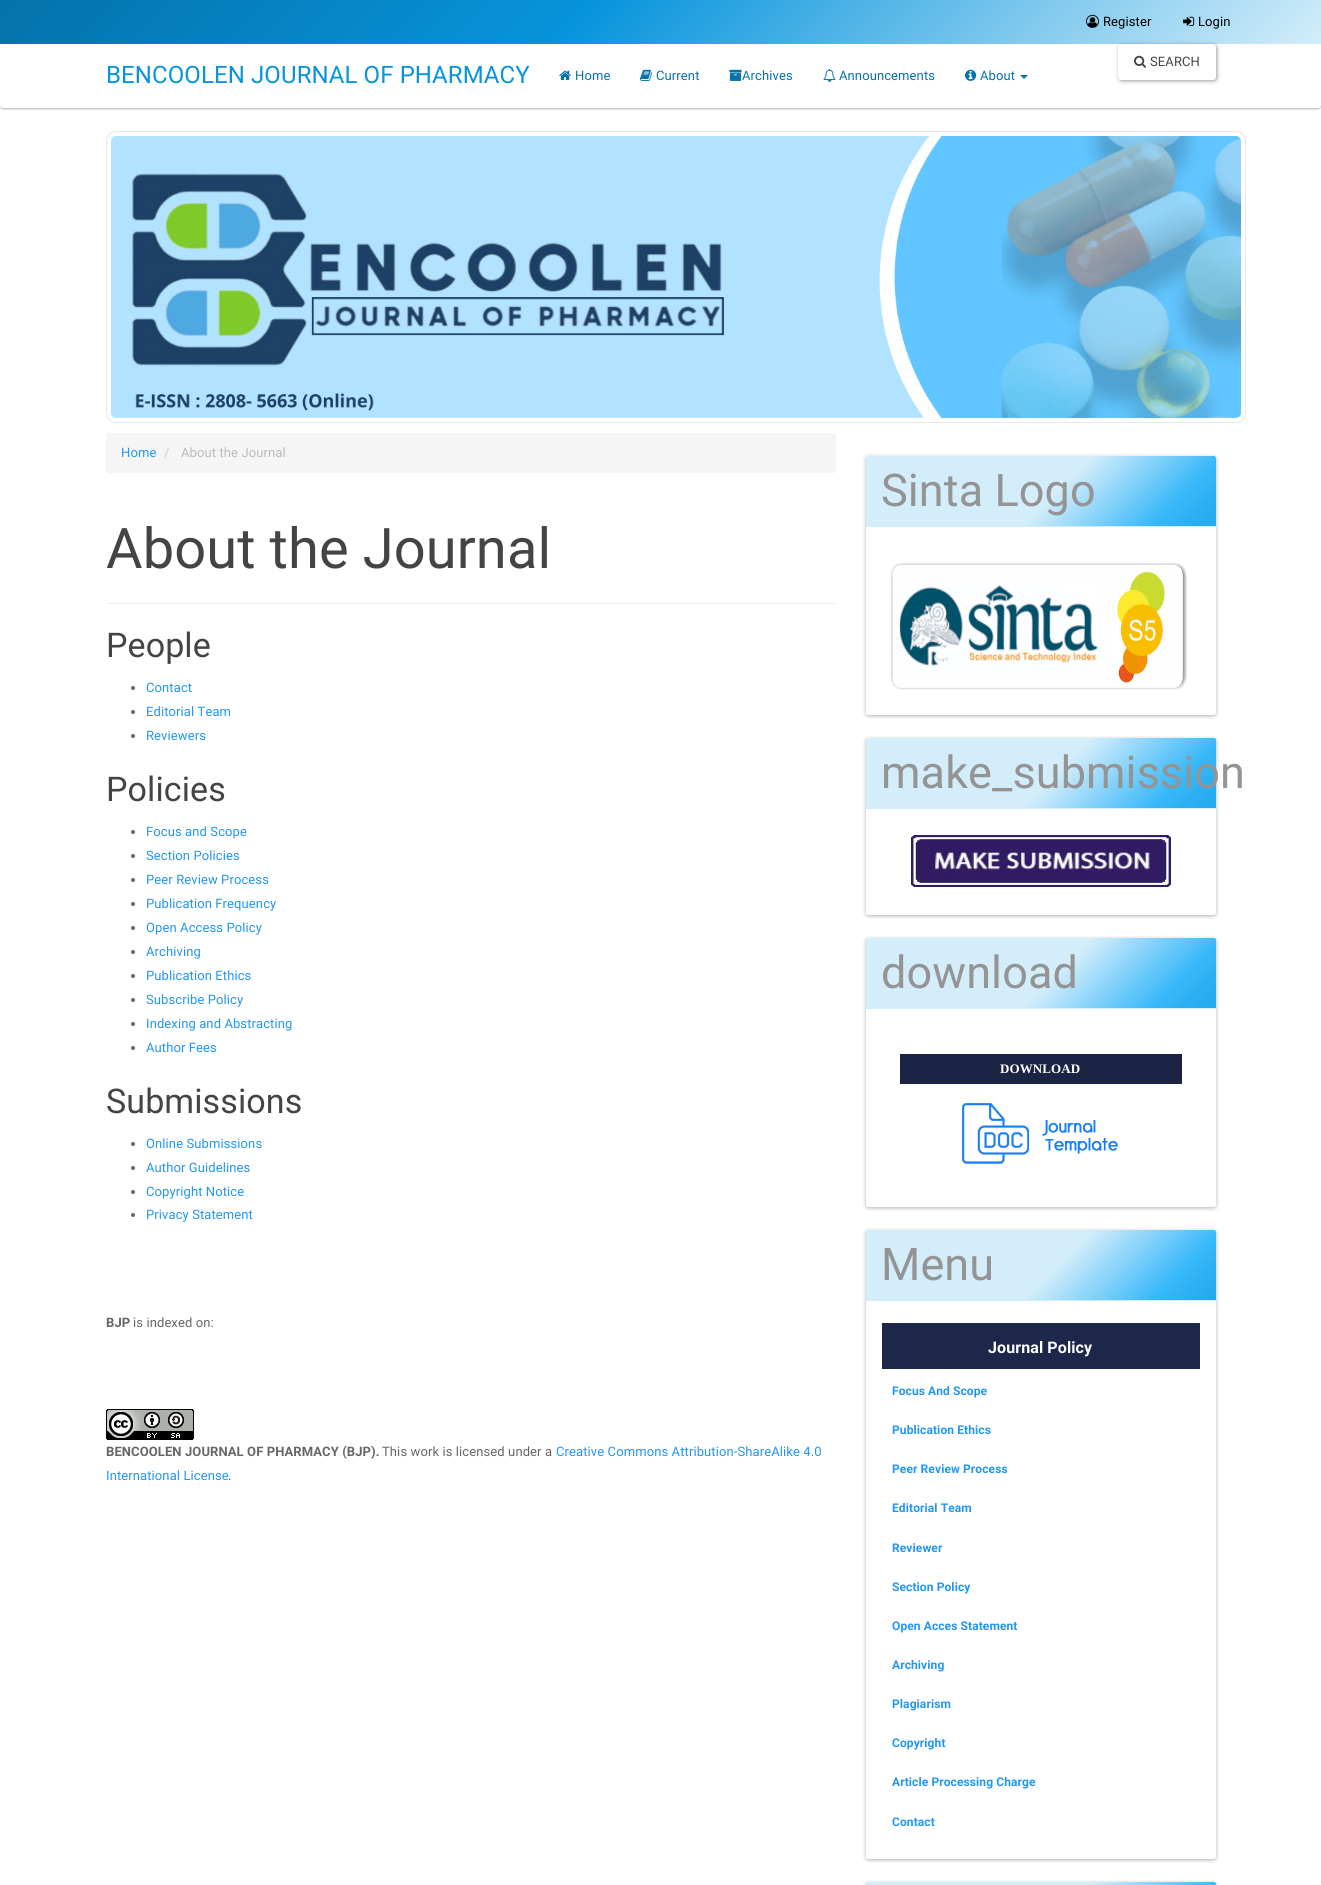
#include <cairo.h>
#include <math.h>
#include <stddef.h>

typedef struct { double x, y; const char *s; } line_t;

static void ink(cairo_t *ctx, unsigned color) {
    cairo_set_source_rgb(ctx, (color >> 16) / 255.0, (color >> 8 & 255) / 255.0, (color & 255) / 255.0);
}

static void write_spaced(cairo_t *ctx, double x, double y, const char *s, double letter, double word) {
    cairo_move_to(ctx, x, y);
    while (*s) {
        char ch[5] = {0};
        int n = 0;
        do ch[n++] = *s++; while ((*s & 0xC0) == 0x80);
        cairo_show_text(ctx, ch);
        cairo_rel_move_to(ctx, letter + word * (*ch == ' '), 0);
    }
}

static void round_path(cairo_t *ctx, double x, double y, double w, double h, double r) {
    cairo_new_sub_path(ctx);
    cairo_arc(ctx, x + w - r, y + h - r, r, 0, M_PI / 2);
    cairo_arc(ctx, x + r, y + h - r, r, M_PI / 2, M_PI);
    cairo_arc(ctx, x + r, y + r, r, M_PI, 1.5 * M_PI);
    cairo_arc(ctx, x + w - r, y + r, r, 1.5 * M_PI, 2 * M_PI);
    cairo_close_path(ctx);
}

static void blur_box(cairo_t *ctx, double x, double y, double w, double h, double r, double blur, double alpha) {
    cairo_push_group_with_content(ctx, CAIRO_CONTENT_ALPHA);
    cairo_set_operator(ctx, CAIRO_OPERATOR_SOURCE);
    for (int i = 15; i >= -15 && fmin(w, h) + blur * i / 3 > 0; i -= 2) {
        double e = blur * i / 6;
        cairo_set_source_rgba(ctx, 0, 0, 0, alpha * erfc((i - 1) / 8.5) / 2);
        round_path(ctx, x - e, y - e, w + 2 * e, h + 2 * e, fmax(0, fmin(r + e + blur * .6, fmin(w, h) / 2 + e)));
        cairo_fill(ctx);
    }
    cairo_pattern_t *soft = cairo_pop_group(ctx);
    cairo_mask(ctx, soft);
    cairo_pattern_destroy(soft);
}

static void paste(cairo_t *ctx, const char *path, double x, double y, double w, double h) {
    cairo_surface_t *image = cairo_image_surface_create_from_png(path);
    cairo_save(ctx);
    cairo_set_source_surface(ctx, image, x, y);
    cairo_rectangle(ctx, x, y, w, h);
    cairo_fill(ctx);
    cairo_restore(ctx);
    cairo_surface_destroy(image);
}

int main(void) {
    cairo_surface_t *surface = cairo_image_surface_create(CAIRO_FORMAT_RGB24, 1321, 1885);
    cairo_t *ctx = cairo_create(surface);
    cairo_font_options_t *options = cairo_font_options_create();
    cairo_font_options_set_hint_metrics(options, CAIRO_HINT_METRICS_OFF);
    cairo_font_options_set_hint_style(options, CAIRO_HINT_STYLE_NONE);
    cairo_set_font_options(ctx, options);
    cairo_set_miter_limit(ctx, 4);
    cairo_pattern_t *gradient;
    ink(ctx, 0xFFFFFF);
    cairo_paint(ctx);
    ink(ctx, 0x000000);
    blur_box(ctx, 0, 1, 1321, 108, 3, 1, 0.3);
    ink(ctx, 0xFFFFFF);
    round_path(ctx, 0, 0, 1321, 108, 3);
    cairo_fill(ctx);
    gradient = cairo_pattern_create_linear(319, -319, 1002, 363);
    cairo_pattern_add_color_stop_rgba(gradient, 0, 0.02, 0.447, 0.667, 1);
    cairo_pattern_add_color_stop_rgba(gradient, 0.44, 0.027, 0.58, 0.863, 1);
    cairo_pattern_add_color_stop_rgba(gradient, 1, 0.827, 0.929, 0.98, 1);
    cairo_set_source(ctx, gradient);
    cairo_pattern_destroy(gradient);
    cairo_rectangle(ctx, 0, 0, 1321, 44);
    cairo_fill(ctx);
    paste(ctx, "media/1.png", 1086, 14, 13, 14);
    cairo_select_font_face(ctx, "Roboto", CAIRO_FONT_SLANT_NORMAL, CAIRO_FONT_WEIGHT_NORMAL);
    cairo_set_font_size(ctx, 13);
    ink(ctx, 0x000000);
    write_spaced(ctx, 1103, 26, "Register", 0.1, 0);
    paste(ctx, "media/2.png", 1183, 16, 12, 10);
    write_spaced(ctx, 1198, 26, "Login", 0.1, 0);
    cairo_set_font_size(ctx, 24);
    ink(ctx, 0x0794DC);
    write_spaced(ctx, 106, 83, "BENCOOLEN JOURNAL OF PHARMACY", 0.1, 0);
    ink(ctx, 0x000000);
    blur_box(ctx, 1119, 45, 98, 36, 3, 2, 0.4);
    ink(ctx, 0xFFFFFF);
    round_path(ctx, 1118, 44, 98, 36, 3);
    cairo_fill(ctx);
    paste(ctx, "media/3.png", 1134, 55, 12, 13);
    cairo_set_font_size(ctx, 13);
    ink(ctx, 0x444444);
    write_spaced(ctx, 1150, 66, "SEARCH", 0.1, 0);
    paste(ctx, "media/4.png", 559, 70, 12, 10);
    ink(ctx, 0x0572AA);
    write_spaced(ctx, 575, 80, "Home", 0.1, 0);
    paste(ctx, "media/5.png", 640, 69, 12, 12);
    write_spaced(ctx, 656, 80, "Current", 0.1, 0);
    paste(ctx, "media/6.png", 729, 69, 13, 12);
    write_spaced(ctx, 742, 80, "Archives", 0.1, 0);
    paste(ctx, "media/7.png", 823, 68, 13, 14);
    write_spaced(ctx, 839, 80, "Announcements", 0.1, 0);
    paste(ctx, "media/8.png", 965, 69, 12, 12);
    write_spaced(ctx, 980, 80, "About", 0.1, 0);
    cairo_new_path(ctx);
    cairo_move_to(ctx, 1020, 75);
    cairo_line_to(ctx, 1028, 75);
    cairo_line_to(ctx, 1024, 79);
    cairo_close_path(ctx);
    cairo_fill(ctx);
    round_path(ctx, 106.5, 131.5, 1139, 291, 9.5);
    ink(ctx, 0xE7E7E7);
    cairo_set_line_width(ctx, 1);
    cairo_stroke(ctx);
    paste(ctx, "media/9.png", 111, 136, 1130, 282);
    ink(ctx, 0xF5F5F5);
    round_path(ctx, 106, 433, 730, 40, 3);
    cairo_fill(ctx);
    ink(ctx, 0x2196F3);
    write_spaced(ctx, 121, 457, "Home", 0.1, 0);
    ink(ctx, 0xCCCCCC);
    write_spaced(ctx, 164, 457, "/", 0.1, 0);
    ink(ctx, 0xBBBBBB);
    write_spaced(ctx, 181, 457, "About the Journal", 0.1, 0);
    ink(ctx, 0xEEEEEE);
    cairo_rectangle(ctx, 106, 603, 730, 1);
    cairo_fill(ctx);
    cairo_set_font_size(ctx, 56);
    ink(ctx, 0x444444);
    write_spaced(ctx, 106, 568, "About the Journal", 0.1, 0);
    cairo_set_font_size(ctx, 34);
    write_spaced(ctx, 106, 657, "People", 0.1, 0);
    ink(ctx, 0x666666);
    cairo_new_path(ctx);
    cairo_arc(ctx, 133, 688, 2, 0, 2 * M_PI);
    cairo_fill(ctx);
    cairo_set_font_size(ctx, 13);
    ink(ctx, 0x2196F3);
    write_spaced(ctx, 146, 692, "Contact", 0.1, 0);
    ink(ctx, 0x666666);
    cairo_new_path(ctx);
    cairo_arc(ctx, 133, 712, 2, 0, 2 * M_PI);
    cairo_fill(ctx);
    ink(ctx, 0x2196F3);
    write_spaced(ctx, 146, 716, "Editorial Team", 0.1, 0);
    ink(ctx, 0x666666);
    cairo_new_path(ctx);
    cairo_arc(ctx, 133, 736, 2, 0, 2 * M_PI);
    cairo_fill(ctx);
    ink(ctx, 0x2196F3);
    write_spaced(ctx, 146, 740, "Reviewers", 0.1, 0);
    cairo_set_font_size(ctx, 34);
    ink(ctx, 0x444444);
    write_spaced(ctx, 106, 801, "Policies", 0.1, 0);
    ink(ctx, 0x666666);
    cairo_new_path(ctx);
    cairo_arc(ctx, 133, 832, 2, 0, 2 * M_PI);
    cairo_fill(ctx);
    cairo_set_font_size(ctx, 13);
    ink(ctx, 0x2196F3);
    write_spaced(ctx, 146, 836, "Focus and Scope", 0.1, 0);
    ink(ctx, 0x666666);
    cairo_new_path(ctx);
    cairo_arc(ctx, 133, 856, 2, 0, 2 * M_PI);
    cairo_fill(ctx);
    ink(ctx, 0x2196F3);
    write_spaced(ctx, 146, 860, "Section Policies", 0.1, 0);
    ink(ctx, 0x666666);
    cairo_new_path(ctx);
    cairo_arc(ctx, 133, 880, 2, 0, 2 * M_PI);
    cairo_fill(ctx);
    ink(ctx, 0x2196F3);
    write_spaced(ctx, 146, 884, "Peer Review Process", 0.1, 0);
    ink(ctx, 0x666666);
    cairo_new_path(ctx);
    cairo_arc(ctx, 133, 904, 2, 0, 2 * M_PI);
    cairo_fill(ctx);
    ink(ctx, 0x2196F3);
    write_spaced(ctx, 146, 908, "Publication Frequency", 0.1, 0);
    ink(ctx, 0x666666);
    cairo_new_path(ctx);
    cairo_arc(ctx, 133, 928, 2, 0, 2 * M_PI);
    cairo_fill(ctx);
    ink(ctx, 0x2196F3);
    write_spaced(ctx, 146, 932, "Open Access Policy", 0.1, 0);
    ink(ctx, 0x666666);
    cairo_new_path(ctx);
    cairo_arc(ctx, 133, 952, 2, 0, 2 * M_PI);
    cairo_fill(ctx);
    ink(ctx, 0x2196F3);
    write_spaced(ctx, 146, 956, "Archiving", 0.1, 0);
    ink(ctx, 0x666666);
    cairo_new_path(ctx);
    cairo_arc(ctx, 133, 976, 2, 0, 2 * M_PI);
    cairo_fill(ctx);
    ink(ctx, 0x2196F3);
    write_spaced(ctx, 146, 980, "Publication Ethics", 0.1, 0);
    ink(ctx, 0x666666);
    cairo_new_path(ctx);
    cairo_arc(ctx, 133, 1000, 2, 0, 2 * M_PI);
    cairo_fill(ctx);
    ink(ctx, 0x2196F3);
    write_spaced(ctx, 146, 1004, "Subscribe Policy", 0.1, 0);
    ink(ctx, 0x666666);
    cairo_new_path(ctx);
    cairo_arc(ctx, 133, 1024, 2, 0, 2 * M_PI);
    cairo_fill(ctx);
    ink(ctx, 0x2196F3);
    write_spaced(ctx, 146, 1028, "Indexing and Abstracting", 0.1, 0);
    ink(ctx, 0x666666);
    cairo_new_path(ctx);
    cairo_arc(ctx, 133, 1048, 2, 0, 2 * M_PI);
    cairo_fill(ctx);
    ink(ctx, 0x2196F3);
    write_spaced(ctx, 146, 1052, "Author Fees", 0.1, 0);
    cairo_set_font_size(ctx, 34);
    ink(ctx, 0x444444);
    write_spaced(ctx, 106, 1113, "Submissions", 0.1, 0);
    ink(ctx, 0x666666);
    cairo_new_path(ctx);
    cairo_arc(ctx, 133, 1144, 2, 0, 2 * M_PI);
    cairo_fill(ctx);
    cairo_set_font_size(ctx, 13);
    ink(ctx, 0x2196F3);
    write_spaced(ctx, 146, 1148, "Online Submissions", 0.1, 0);
    ink(ctx, 0x666666);
    cairo_new_path(ctx);
    cairo_arc(ctx, 133, 1168, 2, 0, 2 * M_PI);
    cairo_fill(ctx);
    ink(ctx, 0x2196F3);
    write_spaced(ctx, 146, 1172, "Author Guidelines", 0.1, 0);
    ink(ctx, 0x666666);
    cairo_new_path(ctx);
    cairo_arc(ctx, 133, 1192, 2, 0, 2 * M_PI);
    cairo_fill(ctx);
    ink(ctx, 0x2196F3);
    write_spaced(ctx, 146, 1196, "Copyright Notice", 0.1, 0);
    ink(ctx, 0x666666);
    cairo_new_path(ctx);
    cairo_arc(ctx, 133, 1215, 2, 0, 2 * M_PI);
    cairo_fill(ctx);
    ink(ctx, 0x2196F3);
    write_spaced(ctx, 146, 1219, "Privacy Statement", 0.1, 0);
    cairo_select_font_face(ctx, "Roboto", CAIRO_FONT_SLANT_NORMAL, CAIRO_FONT_WEIGHT_BOLD);
    ink(ctx, 0x666666);
    write_spaced(ctx, 106, 1327, "BJP", 0.1, 0);
    cairo_select_font_face(ctx, "Roboto", CAIRO_FONT_SLANT_NORMAL, CAIRO_FONT_WEIGHT_NORMAL);
    write_spaced(ctx, 133, 1327, "is indexed on:", 0.1, 0);
    paste(ctx, "media/10.png", 106, 1409, 88, 31);
    cairo_select_font_face(ctx, "Roboto", CAIRO_FONT_SLANT_NORMAL, CAIRO_FONT_WEIGHT_BOLD);
    write_spaced(ctx, 106, 1456, "BENCOOLEN JOURNAL OF PHARMACY (BJP).", 0.1, 0);
    cairo_select_font_face(ctx, "Roboto", CAIRO_FONT_SLANT_NORMAL, CAIRO_FONT_WEIGHT_NORMAL);
    write_spaced(ctx, 382, 1456, "This work is licensed under a", 0.1, 0);
    ink(ctx, 0x2196F3);
    write_spaced(ctx, 556, 1456, "Creative Commons Attribution-ShareAlike 4.0", 0.1, 0);
    write_spaced(ctx, 106, 1480, "International License", 0.1, 0);
    ink(ctx, 0x666666);
    write_spaced(ctx, 228, 1480, ".", 0.1, 0);
    ink(ctx, 0x000000);
    blur_box(ctx, 866, 457, 350, 259, 2, 2, 0.3);
    ink(ctx, 0xFFFFFF);
    round_path(ctx, 866, 456, 350, 259, 2);
    cairo_fill(ctx);
    gradient = cairo_pattern_create_linear(936, 386, 1188, 638);
    cairo_pattern_add_color_stop_rgba(gradient, 0.06, 0.827, 0.929, 0.98, 1);
    cairo_pattern_add_color_stop_rgba(gradient, 0.45, 0.827, 0.929, 0.98, 1);
    cairo_pattern_add_color_stop_rgba(gradient, 0.71, 0.212, 0.718, 0.976, 1);
    cairo_pattern_add_color_stop_rgba(gradient, 1, 0.027, 0.58, 0.863, 1);
    cairo_set_source(ctx, gradient);
    cairo_pattern_destroy(gradient);
    cairo_new_path(ctx);
    cairo_move_to(ctx, 868, 456);
    cairo_line_to(ctx, 1214, 456);
    cairo_curve_to(ctx, 1215, 456, 1216, 457, 1216, 458);
    cairo_line_to(ctx, 1216, 526);
    cairo_line_to(ctx, 866, 526);
    cairo_line_to(ctx, 866, 458);
    cairo_curve_to(ctx, 866, 457, 867, 456, 868, 456);
    cairo_close_path(ctx);
    cairo_fill(ctx);
    ink(ctx, 0xD3EDFA);
    cairo_rectangle(ctx, 866, 526, 350, 1);
    cairo_fill(ctx);
    cairo_set_font_size(ctx, 45);
    ink(ctx, 0x949494);
    write_spaced(ctx, 881, 506, "Sinta Logo", 0.1, 0);
    paste(ctx, "media/11.png", 890, 563, 297, 127);
    ink(ctx, 0x000000);
    blur_box(ctx, 866, 739, 350, 177, 2, 2, 0.3);
    ink(ctx, 0xFFFFFF);
    round_path(ctx, 866, 738, 350, 177, 2);
    cairo_fill(ctx);
    gradient = cairo_pattern_create_linear(936, 668, 1188, 920);
    cairo_pattern_add_color_stop_rgba(gradient, 0.06, 0.827, 0.929, 0.98, 1);
    cairo_pattern_add_color_stop_rgba(gradient, 0.45, 0.827, 0.929, 0.98, 1);
    cairo_pattern_add_color_stop_rgba(gradient, 0.71, 0.212, 0.718, 0.976, 1);
    cairo_pattern_add_color_stop_rgba(gradient, 1, 0.027, 0.58, 0.863, 1);
    cairo_set_source(ctx, gradient);
    cairo_pattern_destroy(gradient);
    cairo_new_path(ctx);
    cairo_move_to(ctx, 868, 738);
    cairo_line_to(ctx, 1214, 738);
    cairo_curve_to(ctx, 1215, 738, 1216, 739, 1216, 740);
    cairo_line_to(ctx, 1216, 808);
    cairo_line_to(ctx, 866, 808);
    cairo_line_to(ctx, 866, 740);
    cairo_curve_to(ctx, 866, 739, 867, 738, 868, 738);
    cairo_close_path(ctx);
    cairo_fill(ctx);
    ink(ctx, 0xD3EDFA);
    cairo_rectangle(ctx, 866, 808, 350, 1);
    cairo_fill(ctx);
    ink(ctx, 0x949494);
    write_spaced(ctx, 881, 788, "make_submission", 0.1, 0);
    paste(ctx, "media/12.png", 911, 835, 260, 52);
    ink(ctx, 0x000000);
    blur_box(ctx, 866, 939, 350, 269, 2, 2, 0.3);
    ink(ctx, 0xFFFFFF);
    round_path(ctx, 866, 938, 350, 269, 2);
    cairo_fill(ctx);
    gradient = cairo_pattern_create_linear(936, 868, 1188, 1120);
    cairo_pattern_add_color_stop_rgba(gradient, 0.06, 0.827, 0.929, 0.98, 1);
    cairo_pattern_add_color_stop_rgba(gradient, 0.45, 0.827, 0.929, 0.98, 1);
    cairo_pattern_add_color_stop_rgba(gradient, 0.71, 0.212, 0.718, 0.976, 1);
    cairo_pattern_add_color_stop_rgba(gradient, 1, 0.027, 0.58, 0.863, 1);
    cairo_set_source(ctx, gradient);
    cairo_pattern_destroy(gradient);
    cairo_new_path(ctx);
    cairo_move_to(ctx, 868, 938);
    cairo_line_to(ctx, 1214, 938);
    cairo_curve_to(ctx, 1215, 938, 1216, 939, 1216, 940);
    cairo_line_to(ctx, 1216, 1008);
    cairo_line_to(ctx, 866, 1008);
    cairo_line_to(ctx, 866, 940);
    cairo_curve_to(ctx, 866, 939, 867, 938, 868, 938);
    cairo_close_path(ctx);
    cairo_fill(ctx);
    ink(ctx, 0xD3EDFA);
    cairo_rectangle(ctx, 866, 1008, 350, 1);
    cairo_fill(ctx);
    ink(ctx, 0x949494);
    write_spaced(ctx, 881, 988, "download", 0.1, 0);
    ink(ctx, 0x1B2445);
    cairo_rectangle(ctx, 900, 1054, 282, 30);
    cairo_fill(ctx);
    cairo_select_font_face(ctx, "Liberation Serif", CAIRO_FONT_SLANT_NORMAL, CAIRO_FONT_WEIGHT_BOLD);
    cairo_set_font_size(ctx, 13);
    ink(ctx, 0xFFFFFF);
    write_spaced(ctx, 1000, 1073, "DOWNLOAD", 0.1, 0);
    paste(ctx, "media/13.png", 962, 1103, 156, 61);
    ink(ctx, 0x000000);
    blur_box(ctx, 866, 1231, 350, 629, 2, 2, 0.3);
    ink(ctx, 0xFFFFFF);
    round_path(ctx, 866, 1230, 350, 629, 2);
    cairo_fill(ctx);
    gradient = cairo_pattern_create_linear(936, 1160, 1188, 1412);
    cairo_pattern_add_color_stop_rgba(gradient, 0.06, 0.827, 0.929, 0.98, 1);
    cairo_pattern_add_color_stop_rgba(gradient, 0.45, 0.827, 0.929, 0.98, 1);
    cairo_pattern_add_color_stop_rgba(gradient, 0.71, 0.212, 0.718, 0.976, 1);
    cairo_pattern_add_color_stop_rgba(gradient, 1, 0.027, 0.58, 0.863, 1);
    cairo_set_source(ctx, gradient);
    cairo_pattern_destroy(gradient);
    cairo_new_path(ctx);
    cairo_move_to(ctx, 868, 1230);
    cairo_line_to(ctx, 1214, 1230);
    cairo_curve_to(ctx, 1215, 1230, 1216, 1231, 1216, 1232);
    cairo_line_to(ctx, 1216, 1300);
    cairo_line_to(ctx, 866, 1300);
    cairo_line_to(ctx, 866, 1232);
    cairo_curve_to(ctx, 866, 1231, 867, 1230, 868, 1230);
    cairo_close_path(ctx);
    cairo_fill(ctx);
    ink(ctx, 0xD3EDFA);
    cairo_rectangle(ctx, 866, 1300, 350, 1);
    cairo_fill(ctx);
    cairo_select_font_face(ctx, "Roboto", CAIRO_FONT_SLANT_NORMAL, CAIRO_FONT_WEIGHT_NORMAL);
    cairo_set_font_size(ctx, 45);
    ink(ctx, 0x949494);
    write_spaced(ctx, 881, 1280, "Menu", 0.1, 0);
    ink(ctx, 0x1D2749);
    cairo_rectangle(ctx, 882, 1323, 318, 46);
    cairo_fill(ctx);
    cairo_select_font_face(ctx, "Roboto", CAIRO_FONT_SLANT_NORMAL, CAIRO_FONT_WEIGHT_BOLD);
    cairo_set_font_size(ctx, 16);
    ink(ctx, 0xFFFFFF);
    write_spaced(ctx, 988, 1353, "Journal Policy", 0.1, 0);
    cairo_set_font_size(ctx, 12);
    ink(ctx, 0x2196F3);
    {
        static const line_t items[] = {
            {892, 1395, "Focus And Scope"},
            {892, 1434, "Publication Ethics"},
            {892, 1473, "Peer Review Process"},
            {892, 1512, "Editorial Team"},
            {892, 1552, "Reviewer"},
            {892, 1591, "Section Policy"},
            {892, 1630, "Open Acces Statement"},
            {892, 1669, "Archiving"},
            {892, 1708, "Plagiarism"},
            {892, 1747, "Copyright"},
            {892, 1786, "Article Processing Charge"},
            {892, 1826, "Contact"},
        };
        for (size_t i = 0; i < sizeof items / sizeof *items; i++) {
            write_spaced(ctx, items[i].x, items[i].y, items[i].s, 0.1, 0);
        }
    }
    ink(ctx, 0x000000);
    blur_box(ctx, 866, 1883, 350, 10, 2, 2, 0.3);
    gradient = cairo_pattern_create_linear(936, 1812, 1188, 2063);
    cairo_pattern_add_color_stop_rgba(gradient, 0.06, 0.827, 0.929, 0.98, 1);
    cairo_pattern_add_color_stop_rgba(gradient, 0.45, 0.827, 0.929, 0.98, 1);
    cairo_pattern_add_color_stop_rgba(gradient, 0.71, 0.212, 0.718, 0.976, 1);
    cairo_pattern_add_color_stop_rgba(gradient, 1, 0.027, 0.58, 0.863, 1);
    cairo_set_source(ctx, gradient);
    cairo_pattern_destroy(gradient);
    cairo_new_path(ctx);
    cairo_move_to(ctx, 868, 1882);
    cairo_line_to(ctx, 1214, 1882);
    cairo_curve_to(ctx, 1215, 1882, 1216, 1883, 1216, 1884);
    cairo_line_to(ctx, 1216, 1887);
    cairo_line_to(ctx, 866, 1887);
    cairo_line_to(ctx, 866, 1884);
    cairo_curve_to(ctx, 866, 1883, 867, 1882, 868, 1882);
    cairo_close_path(ctx);
    cairo_fill(ctx);
    cairo_surface_write_to_png(surface, "image.png");
    cairo_font_options_destroy(options);
    cairo_destroy(ctx);
    cairo_surface_destroy(surface);
    return 0;
}
